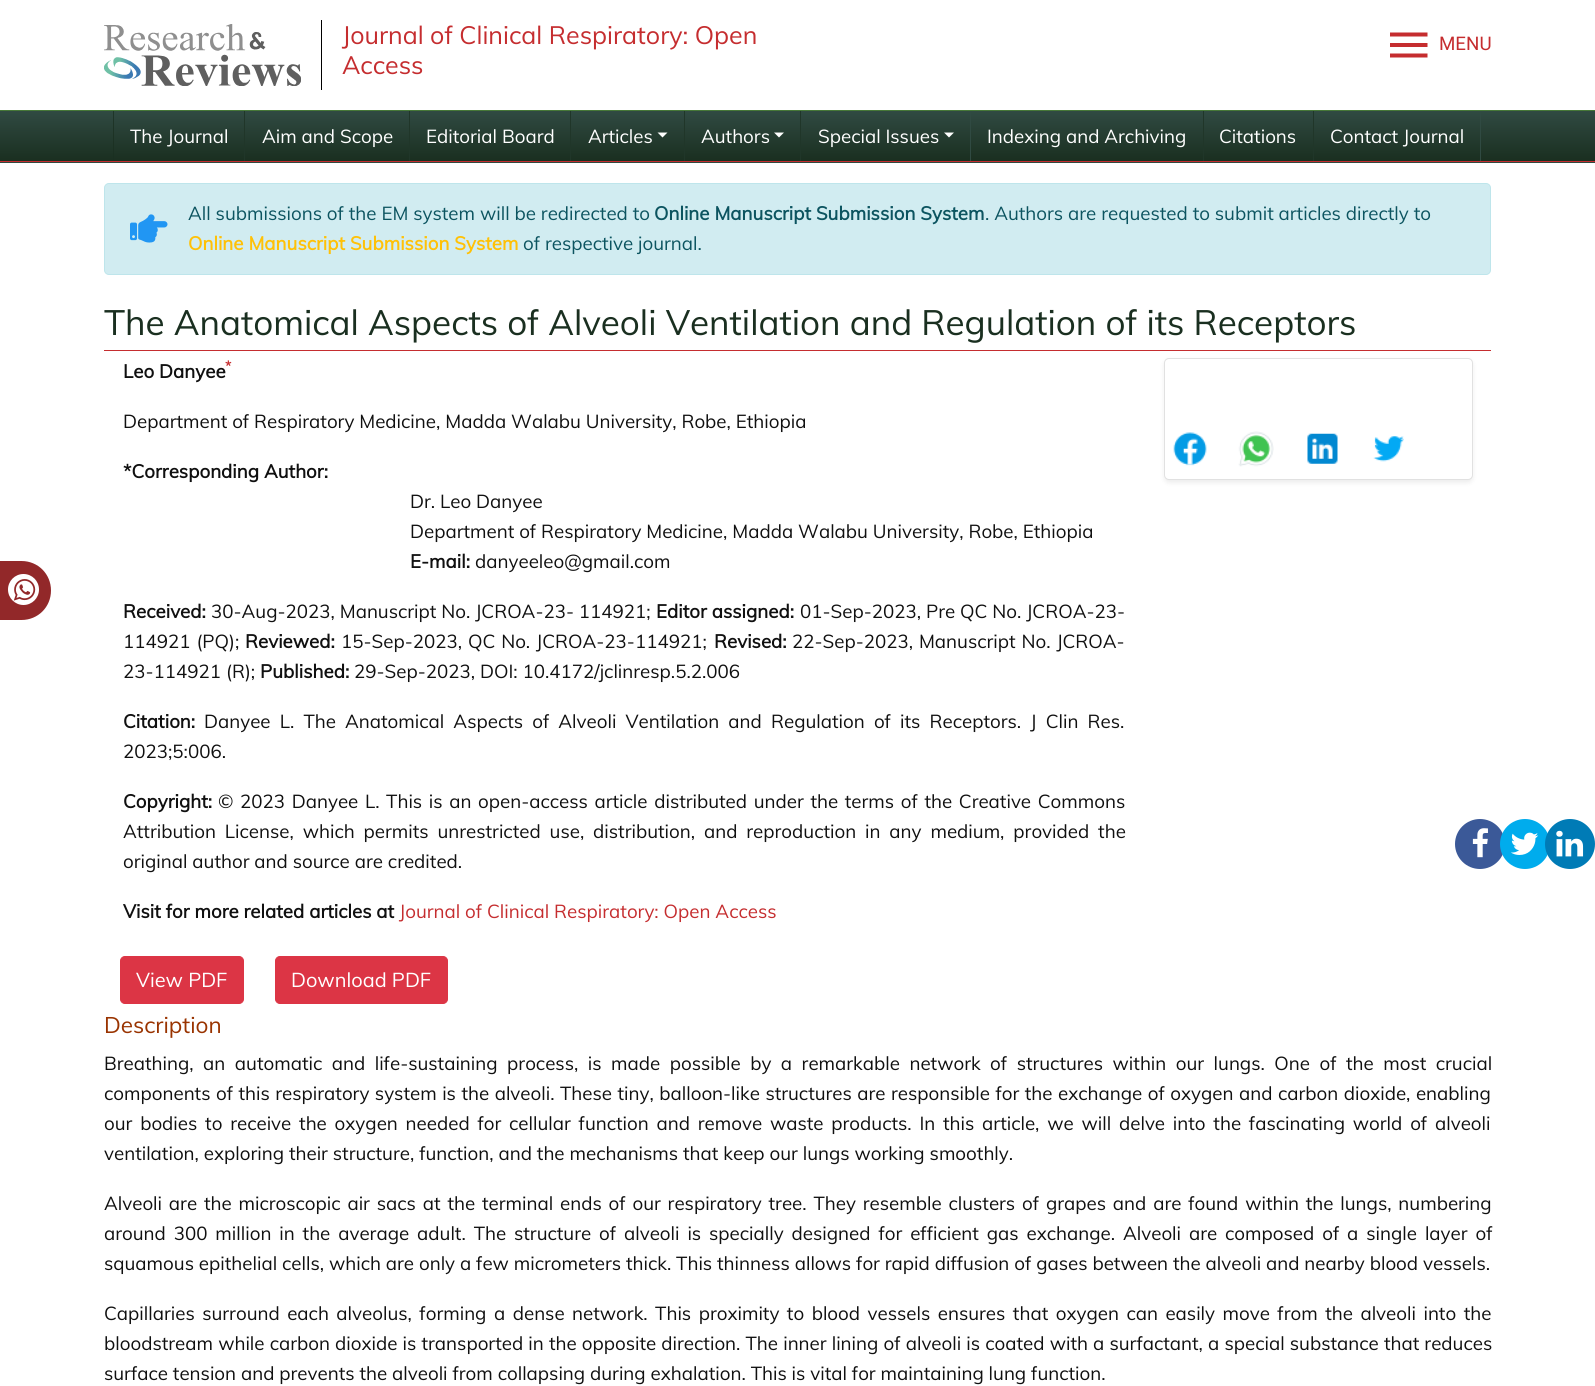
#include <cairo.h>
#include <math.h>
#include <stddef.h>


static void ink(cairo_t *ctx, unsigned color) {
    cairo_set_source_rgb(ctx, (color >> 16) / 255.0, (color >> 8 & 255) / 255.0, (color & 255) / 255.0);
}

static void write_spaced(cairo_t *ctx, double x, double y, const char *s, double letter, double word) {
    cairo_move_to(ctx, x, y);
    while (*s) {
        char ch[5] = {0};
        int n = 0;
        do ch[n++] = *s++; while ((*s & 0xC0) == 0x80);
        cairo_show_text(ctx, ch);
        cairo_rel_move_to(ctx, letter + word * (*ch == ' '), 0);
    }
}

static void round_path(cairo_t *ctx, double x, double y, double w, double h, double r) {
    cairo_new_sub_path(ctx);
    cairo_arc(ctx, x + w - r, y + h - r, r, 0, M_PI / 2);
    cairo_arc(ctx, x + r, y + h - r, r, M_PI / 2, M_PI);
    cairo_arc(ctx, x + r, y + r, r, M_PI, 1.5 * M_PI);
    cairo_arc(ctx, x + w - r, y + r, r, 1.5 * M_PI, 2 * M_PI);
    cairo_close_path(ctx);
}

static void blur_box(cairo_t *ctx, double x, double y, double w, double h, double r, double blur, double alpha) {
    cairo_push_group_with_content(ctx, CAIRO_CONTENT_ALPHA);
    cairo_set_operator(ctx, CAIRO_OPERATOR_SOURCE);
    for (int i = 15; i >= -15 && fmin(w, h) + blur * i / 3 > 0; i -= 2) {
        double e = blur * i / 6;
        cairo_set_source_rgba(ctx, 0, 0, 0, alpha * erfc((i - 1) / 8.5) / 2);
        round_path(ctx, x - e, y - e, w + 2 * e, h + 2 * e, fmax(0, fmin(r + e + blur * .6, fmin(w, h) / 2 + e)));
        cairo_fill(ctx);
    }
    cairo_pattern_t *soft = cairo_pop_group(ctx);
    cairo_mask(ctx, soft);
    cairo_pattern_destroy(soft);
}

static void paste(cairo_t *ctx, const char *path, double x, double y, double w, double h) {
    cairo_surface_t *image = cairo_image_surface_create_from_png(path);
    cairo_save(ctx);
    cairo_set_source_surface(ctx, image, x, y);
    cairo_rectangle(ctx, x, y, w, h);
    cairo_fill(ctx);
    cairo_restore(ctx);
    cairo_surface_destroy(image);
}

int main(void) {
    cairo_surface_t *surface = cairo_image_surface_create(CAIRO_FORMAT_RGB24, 1595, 1386);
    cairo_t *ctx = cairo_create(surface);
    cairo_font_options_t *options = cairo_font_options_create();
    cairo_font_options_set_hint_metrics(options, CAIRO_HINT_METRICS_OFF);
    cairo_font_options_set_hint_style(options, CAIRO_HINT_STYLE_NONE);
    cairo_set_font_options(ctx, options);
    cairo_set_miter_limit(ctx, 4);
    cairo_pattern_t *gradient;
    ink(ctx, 0xFFFFFF);
    cairo_paint(ctx);
    paste(ctx, "media/1.png", 104, 24, 197, 62);
    ink(ctx, 0x000000);
    cairo_rectangle(ctx, 321, 20, 1, 70);
    cairo_fill(ctx);
    cairo_select_font_face(ctx, "Muli", CAIRO_FONT_SLANT_NORMAL, CAIRO_FONT_WEIGHT_NORMAL);
    cairo_set_font_size(ctx, 25);
    ink(ctx, 0xC52D2F);
    cairo_move_to(ctx, 342, 44);
    cairo_show_text(ctx, "Journal of Clinical Respiratory: Open");
    cairo_move_to(ctx, 342, 74);
    cairo_show_text(ctx, "Access");
    cairo_select_font_face(ctx, "Roboto", CAIRO_FONT_SLANT_NORMAL, CAIRO_FONT_WEIGHT_NORMAL);
    cairo_set_font_size(ctx, 18.75);
    cairo_move_to(ctx, 1439, 50);
    cairo_show_text(ctx, "MENU");
    cairo_new_path(ctx);
    cairo_move_to(ctx, 1390, 57.5);
    cairo_line_to(ctx, 1427.5, 57.5);
    cairo_line_to(ctx, 1427.5, 53.5);
    cairo_line_to(ctx, 1390, 53.5);
    cairo_close_path(ctx);
    cairo_move_to(ctx, 1390, 47);
    cairo_line_to(ctx, 1427.5, 47);
    cairo_line_to(ctx, 1427.5, 43);
    cairo_line_to(ctx, 1390, 43);
    cairo_close_path(ctx);
    cairo_move_to(ctx, 1390, 32.5);
    cairo_line_to(ctx, 1390, 36.5);
    cairo_line_to(ctx, 1427.5, 36.5);
    cairo_line_to(ctx, 1427.5, 32.5);
    cairo_close_path(ctx);
    cairo_fill(ctx);
    gradient = cairo_pattern_create_linear(798, 111, 798, 161);
    cairo_pattern_add_color_stop_rgba(gradient, 0, 0.188, 0.29, 0.259, 1);
    cairo_pattern_add_color_stop_rgba(gradient, 1, 0.102, 0.184, 0.125, 1);
    cairo_set_source(ctx, gradient);
    cairo_pattern_destroy(gradient);
    cairo_rectangle(ctx, 0, 111, 1595, 50);
    cairo_fill(ctx);
    gradient = cairo_pattern_create_linear(798, 161, 798, 211);
    cairo_pattern_add_color_stop_rgba(gradient, 0, 0.188, 0.29, 0.259, 1);
    cairo_pattern_add_color_stop_rgba(gradient, 1, 0.102, 0.184, 0.125, 1);
    cairo_set_source(ctx, gradient);
    cairo_pattern_destroy(gradient);
    cairo_rectangle(ctx, 0, 162, 1595, 1);
    cairo_fill(ctx);
    ink(ctx, 0x467837);
    cairo_rectangle(ctx, 0, 110, 1595, 1);
    cairo_fill(ctx);
    ink(ctx, 0xC52D2F);
    cairo_rectangle(ctx, 0, 161, 1595, 1);
    cairo_fill(ctx);
    cairo_set_source_rgba(ctx, 0.102, 0.184, 0.125, 0.75);
    cairo_new_path(ctx);
    cairo_move_to(ctx, 113, 111);
    cairo_line_to(ctx, 113, 161);
    cairo_line_to(ctx, 114, 161);
    cairo_line_to(ctx, 114, 111);
    cairo_line_to(ctx, 244, 111);
    cairo_close_path(ctx);
    cairo_fill(ctx);
    cairo_select_font_face(ctx, "Muli", CAIRO_FONT_SLANT_NORMAL, CAIRO_FONT_WEIGHT_NORMAL);
    ink(ctx, 0xFFFFFF);
    cairo_move_to(ctx, 130, 143);
    cairo_show_text(ctx, "The Journal");
    ink(ctx, 0x203629);
    cairo_new_path(ctx);
    cairo_move_to(ctx, 244, 111);
    cairo_line_to(ctx, 244, 161);
    cairo_line_to(ctx, 245, 161);
    cairo_line_to(ctx, 245, 111);
    cairo_line_to(ctx, 409, 111);
    cairo_close_path(ctx);
    cairo_fill(ctx);
    ink(ctx, 0xFFFFFF);
    cairo_move_to(ctx, 262, 143);
    cairo_show_text(ctx, "Aim and Scope");
    ink(ctx, 0x203629);
    cairo_new_path(ctx);
    cairo_move_to(ctx, 409, 111);
    cairo_line_to(ctx, 409, 161);
    cairo_line_to(ctx, 410, 161);
    cairo_line_to(ctx, 410, 111);
    cairo_line_to(ctx, 570, 111);
    cairo_close_path(ctx);
    cairo_fill(ctx);
    ink(ctx, 0xFFFFFF);
    cairo_move_to(ctx, 426, 143);
    cairo_show_text(ctx, "Editorial Board");
    ink(ctx, 0x203629);
    cairo_new_path(ctx);
    cairo_move_to(ctx, 570, 111);
    cairo_line_to(ctx, 570, 161);
    cairo_line_to(ctx, 571, 161);
    cairo_line_to(ctx, 571, 111);
    cairo_line_to(ctx, 684, 111);
    cairo_close_path(ctx);
    cairo_fill(ctx);
    ink(ctx, 0xFFFFFF);
    cairo_move_to(ctx, 588, 143);
    cairo_show_text(ctx, "Articles");
    cairo_new_path(ctx);
    cairo_move_to(ctx, 657.5, 132.5);
    cairo_line_to(ctx, 667.5, 132.5);
    cairo_line_to(ctx, 662.5, 137.5);
    cairo_close_path(ctx);
    cairo_fill(ctx);
    ink(ctx, 0x203629);
    cairo_new_path(ctx);
    cairo_move_to(ctx, 684, 111);
    cairo_line_to(ctx, 684, 161);
    cairo_line_to(ctx, 685, 161);
    cairo_line_to(ctx, 685, 111);
    cairo_line_to(ctx, 800, 111);
    cairo_close_path(ctx);
    cairo_fill(ctx);
    ink(ctx, 0xFFFFFF);
    cairo_move_to(ctx, 701, 143);
    cairo_show_text(ctx, "Authors");
    cairo_new_path(ctx);
    cairo_move_to(ctx, 774, 132.5);
    cairo_line_to(ctx, 784, 132.5);
    cairo_line_to(ctx, 779, 137.5);
    cairo_close_path(ctx);
    cairo_fill(ctx);
    ink(ctx, 0x203629);
    cairo_new_path(ctx);
    cairo_move_to(ctx, 800, 111);
    cairo_line_to(ctx, 800, 161);
    cairo_line_to(ctx, 801, 161);
    cairo_line_to(ctx, 801, 111);
    cairo_line_to(ctx, 970, 111);
    cairo_close_path(ctx);
    cairo_fill(ctx);
    ink(ctx, 0x304A42);
    cairo_rectangle(ctx, 970, 111, 1, 50);
    cairo_fill(ctx);
    ink(ctx, 0xFFFFFF);
    cairo_move_to(ctx, 818, 143);
    cairo_show_text(ctx, "Special Issues");
    cairo_new_path(ctx);
    cairo_move_to(ctx, 944, 132.5);
    cairo_line_to(ctx, 954, 132.5);
    cairo_line_to(ctx, 949, 137.5);
    cairo_close_path(ctx);
    cairo_fill(ctx);
    cairo_move_to(ctx, 987, 143);
    cairo_show_text(ctx, "Indexing and Archiving");
    ink(ctx, 0x203629);
    cairo_new_path(ctx);
    cairo_move_to(ctx, 1203, 111);
    cairo_line_to(ctx, 1203, 161);
    cairo_line_to(ctx, 1204, 161);
    cairo_line_to(ctx, 1204, 111);
    cairo_line_to(ctx, 1313, 111);
    cairo_close_path(ctx);
    cairo_fill(ctx);
    ink(ctx, 0xFFFFFF);
    cairo_move_to(ctx, 1219, 143);
    cairo_show_text(ctx, "Citations");
    ink(ctx, 0x203629);
    cairo_new_path(ctx);
    cairo_move_to(ctx, 1313, 111);
    cairo_line_to(ctx, 1313, 161);
    cairo_line_to(ctx, 1314, 161);
    cairo_line_to(ctx, 1314, 111);
    cairo_line_to(ctx, 1480, 111);
    cairo_close_path(ctx);
    cairo_fill(ctx);
    ink(ctx, 0x304A42);
    cairo_rectangle(ctx, 1480, 111, 1, 50);
    cairo_fill(ctx);
    ink(ctx, 0xFFFFFF);
    cairo_move_to(ctx, 1330, 143);
    cairo_show_text(ctx, "Contact Journal");
    ink(ctx, 0xD1ECF1);
    round_path(ctx, 104.5, 183.5, 1386, 91, 4.5);
    cairo_fill_preserve(ctx);
    ink(ctx, 0xBEE5EB);
    cairo_set_line_width(ctx, 1);
    cairo_stroke(ctx);
    paste(ctx, "media/2.png", 130, 214, 38, 29);
    ink(ctx, 0x0C5460);
    cairo_move_to(ctx, 188, 220);
    cairo_show_text(ctx, "All submissions of the EM system will be redirected to");
    cairo_select_font_face(ctx, "Muli", CAIRO_FONT_SLANT_NORMAL, CAIRO_FONT_WEIGHT_BOLD);
    cairo_move_to(ctx, 654, 220);
    cairo_show_text(ctx, "Online Manuscript Submission System");
    cairo_select_font_face(ctx, "Muli", CAIRO_FONT_SLANT_NORMAL, CAIRO_FONT_WEIGHT_NORMAL);
    cairo_move_to(ctx, 985, 220);
    cairo_show_text(ctx, ". Authors are requested to submit articles directly to");
    cairo_select_font_face(ctx, "Muli", CAIRO_FONT_SLANT_NORMAL, CAIRO_FONT_WEIGHT_BOLD);
    ink(ctx, 0xFFC107);
    cairo_move_to(ctx, 188, 250);
    cairo_show_text(ctx, "Online Manuscript Submission System");
    cairo_select_font_face(ctx, "Muli", CAIRO_FONT_SLANT_NORMAL, CAIRO_FONT_WEIGHT_NORMAL);
    ink(ctx, 0x0C5460);
    cairo_move_to(ctx, 523, 250);
    cairo_show_text(ctx, "of respective journal.");
    ink(ctx, 0x922829);
    cairo_new_path(ctx);
    cairo_move_to(ctx, -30, 561);
    cairo_line_to(ctx, 21.5, 561);
    cairo_curve_to(ctx, 38, 561, 51, 574, 51, 590.5);
    cairo_curve_to(ctx, 51, 607, 38, 620, 21.5, 620);
    cairo_line_to(ctx, -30, 620);
    cairo_close_path(ctx);
    cairo_fill(ctx);
    ink(ctx, 0xFFFFFF);
    cairo_arc(ctx, 23.5, 589.5, 15.5, 0, 2 * M_PI);
    cairo_fill(ctx);
    paste(ctx, "media/3.png", 13, 579, 23, 22);
    ink(ctx, 0xC52D2F);
    cairo_rectangle(ctx, 104, 350, 1387, 1);
    cairo_fill(ctx);
    cairo_set_font_size(ctx, 35);
    ink(ctx, 0x1A2F20);
    cairo_move_to(ctx, 104, 335);
    cairo_show_text(ctx, "The Anatomical Aspects of Alveoli Ventilation and Regulation of its Receptors");
    cairo_select_font_face(ctx, "Muli", CAIRO_FONT_SLANT_NORMAL, CAIRO_FONT_WEIGHT_BOLD);
    cairo_set_font_size(ctx, 14);
    ink(ctx, 0xC52D2F);
    cairo_move_to(ctx, 225, 371);
    cairo_show_text(ctx, "*");
    cairo_set_font_size(ctx, 18.75);
    ink(ctx, 0x101010);
    cairo_move_to(ctx, 123, 378);
    cairo_show_text(ctx, "Leo Danyee");
    cairo_select_font_face(ctx, "Muli", CAIRO_FONT_SLANT_NORMAL, CAIRO_FONT_WEIGHT_NORMAL);
    cairo_move_to(ctx, 123, 428);
    cairo_show_text(ctx, "Department of Respiratory Medicine, Madda Walabu University, Robe, Ethiopia");
    cairo_select_font_face(ctx, "Muli", CAIRO_FONT_SLANT_NORMAL, CAIRO_FONT_WEIGHT_BOLD);
    cairo_move_to(ctx, 123, 478);
    cairo_show_text(ctx, "*Corresponding Author:");
    cairo_select_font_face(ctx, "Muli", CAIRO_FONT_SLANT_NORMAL, CAIRO_FONT_WEIGHT_NORMAL);
    cairo_move_to(ctx, 410, 508);
    cairo_show_text(ctx, "Dr. Leo Danyee");
    cairo_move_to(ctx, 410, 538);
    cairo_show_text(ctx, "Department of Respiratory Medicine, Madda Walabu University, Robe, Ethiopia");
    cairo_select_font_face(ctx, "Muli", CAIRO_FONT_SLANT_NORMAL, CAIRO_FONT_WEIGHT_BOLD);
    cairo_move_to(ctx, 410, 568);
    cairo_show_text(ctx, "E-mail:");
    cairo_select_font_face(ctx, "Muli", CAIRO_FONT_SLANT_NORMAL, CAIRO_FONT_WEIGHT_NORMAL);
    cairo_move_to(ctx, 475, 568);
    cairo_show_text(ctx, "danyeeleo@gmail.com");
    cairo_select_font_face(ctx, "Muli", CAIRO_FONT_SLANT_NORMAL, CAIRO_FONT_WEIGHT_BOLD);
    cairo_move_to(ctx, 123, 618);
    cairo_show_text(ctx, "Received:");
    cairo_select_font_face(ctx, "Muli", CAIRO_FONT_SLANT_NORMAL, CAIRO_FONT_WEIGHT_NORMAL);
    cairo_move_to(ctx, 211, 618);
    cairo_show_text(ctx, "30-Aug-2023, Manuscript No. JCROA-23- 114921;");
    cairo_select_font_face(ctx, "Muli", CAIRO_FONT_SLANT_NORMAL, CAIRO_FONT_WEIGHT_BOLD);
    cairo_move_to(ctx, 656, 618);
    cairo_show_text(ctx, "Editor assigned:");
    cairo_select_font_face(ctx, "Muli", CAIRO_FONT_SLANT_NORMAL, CAIRO_FONT_WEIGHT_NORMAL);
    cairo_move_to(ctx, 800, 618);
    cairo_show_text(ctx, "01-Sep-2023, Pre QC No. JCROA-23-");
    write_spaced(ctx, 123, 648, "114921 (PQ);", 0, 1);
    cairo_select_font_face(ctx, "Muli", CAIRO_FONT_SLANT_NORMAL, CAIRO_FONT_WEIGHT_BOLD);
    cairo_move_to(ctx, 245, 648);
    cairo_show_text(ctx, "Reviewed:");
    cairo_select_font_face(ctx, "Muli", CAIRO_FONT_SLANT_NORMAL, CAIRO_FONT_WEIGHT_NORMAL);
    write_spaced(ctx, 341, 648, "15-Sep-2023, QC No. JCROA-23-114921;", 0, 1);
    cairo_select_font_face(ctx, "Muli", CAIRO_FONT_SLANT_NORMAL, CAIRO_FONT_WEIGHT_BOLD);
    cairo_move_to(ctx, 714, 648);
    cairo_show_text(ctx, "Revised:");
    cairo_select_font_face(ctx, "Muli", CAIRO_FONT_SLANT_NORMAL, CAIRO_FONT_WEIGHT_NORMAL);
    write_spaced(ctx, 792, 648, "22-Sep-2023, Manuscript No. JCROA-", 0, 1);
    cairo_move_to(ctx, 123, 678);
    cairo_show_text(ctx, "23-114921 (R);");
    cairo_select_font_face(ctx, "Muli", CAIRO_FONT_SLANT_NORMAL, CAIRO_FONT_WEIGHT_BOLD);
    cairo_move_to(ctx, 260, 678);
    cairo_show_text(ctx, "Published:");
    cairo_select_font_face(ctx, "Muli", CAIRO_FONT_SLANT_NORMAL, CAIRO_FONT_WEIGHT_NORMAL);
    cairo_move_to(ctx, 354, 678);
    cairo_show_text(ctx, "29-Sep-2023, DOI: 10.4172/jclinresp.5.2.006");
    cairo_select_font_face(ctx, "Muli", CAIRO_FONT_SLANT_NORMAL, CAIRO_FONT_WEIGHT_BOLD);
    cairo_move_to(ctx, 123, 728);
    cairo_show_text(ctx, "Citation:");
    cairo_select_font_face(ctx, "Muli", CAIRO_FONT_SLANT_NORMAL, CAIRO_FONT_WEIGHT_NORMAL);
    write_spaced(ctx, 204, 728, "Danyee L. The Anatomical Aspects of Alveoli Ventilation and Regulation of its Receptors. J Clin Res.", 0, 4.25);
    cairo_move_to(ctx, 123, 758);
    cairo_show_text(ctx, "2023;5:006.");
    cairo_select_font_face(ctx, "Muli", CAIRO_FONT_SLANT_NORMAL, CAIRO_FONT_WEIGHT_BOLD);
    cairo_move_to(ctx, 123, 808);
    cairo_show_text(ctx, "Copyright:");
    cairo_select_font_face(ctx, "Muli", CAIRO_FONT_SLANT_NORMAL, CAIRO_FONT_WEIGHT_NORMAL);
    write_spaced(ctx, 218, 808, "© 2023 Danyee L. This is an open-access article distributed under the terms of the Creative Commons", 0, 1.75);
    write_spaced(ctx, 123, 838, "Attribution License, which permits unrestricted use, distribution, and reproduction in any medium, provided the", 0, 4);
    cairo_move_to(ctx, 123, 868);
    cairo_show_text(ctx, "original author and source are credited.");
    cairo_select_font_face(ctx, "Muli", CAIRO_FONT_SLANT_NORMAL, CAIRO_FONT_WEIGHT_BOLD);
    cairo_move_to(ctx, 123, 918);
    cairo_show_text(ctx, "Visit for more related articles at");
    cairo_select_font_face(ctx, "Muli", CAIRO_FONT_SLANT_NORMAL, CAIRO_FONT_WEIGHT_NORMAL);
    ink(ctx, 0xC52D2F);
    cairo_move_to(ctx, 399, 918);
    cairo_show_text(ctx, "Journal of Clinical Respiratory: Open Access");
    ink(ctx, 0x000000);
    blur_box(ctx, 1164, 360, 309, 123, 5, 2.5, 0.07);
    ink(ctx, 0xFFFFFF);
    round_path(ctx, 1164, 358, 309, 122, 5);
    cairo_fill(ctx);
    round_path(ctx, 1164.5, 358.5, 308, 121, 4.5);
    cairo_set_source_rgba(ctx, 0, 0, 0, 0.12);
    cairo_stroke(ctx);
    paste(ctx, "media/4.png", 1173, 432, 34, 34);
    paste(ctx, "media/5.png", 1238, 431, 36, 36);
    paste(ctx, "media/6.png", 1307, 433, 31, 31);
    paste(ctx, "media/7.png", 1373, 436, 31, 26);
    ink(ctx, 0xDC3545);
    round_path(ctx, 120.5, 956.5, 123, 47, 4.5);
    cairo_fill_preserve(ctx);
    cairo_stroke(ctx);
    cairo_set_font_size(ctx, 20);
    ink(ctx, 0xFFFFFF);
    cairo_move_to(ctx, 136, 987);
    cairo_show_text(ctx, "View PDF");
    ink(ctx, 0xDC3545);
    round_path(ctx, 275.5, 956.5, 172, 47, 4.5);
    cairo_fill_preserve(ctx);
    cairo_stroke(ctx);
    ink(ctx, 0xFFFFFF);
    cairo_move_to(ctx, 291, 987);
    cairo_show_text(ctx, "Download PDF");
    cairo_set_font_size(ctx, 22.5);
    ink(ctx, 0x993300);
    cairo_move_to(ctx, 104, 1033);
    cairo_show_text(ctx, "Description");
    cairo_set_font_size(ctx, 18.75);
    ink(ctx, 0x101010);
    write_spaced(ctx, 104, 1070, "Breathing, an automatic and life-sustaining process, is made possible by a remarkable network of structures within our lungs. One of the most crucial", 0, 4.6);
    write_spaced(ctx, 104, 1100, "components of this respiratory system is the alveoli. These tiny, balloon-like structures are responsible for the exchange of oxygen and carbon dioxide, enabling", 0, 0.6);
    write_spaced(ctx, 104, 1130, "our bodies to receive the oxygen needed for cellular function and remove waste products. In this article, we will delve into the fascinating world of alveoli", 0, 2.9);
    cairo_move_to(ctx, 104, 1160);
    cairo_show_text(ctx, "ventilation, exploring their structure, function, and the mechanisms that keep our lungs working smoothly.");
    write_spaced(ctx, 104, 1210, "Alveoli are the microscopic air sacs at the terminal ends of our respiratory tree. They resemble clusters of grapes and are found within the lungs, numbering", 0, 1.95);
    write_spaced(ctx, 104, 1240, "around 300 million in the average adult. The structure of alveoli is specially designed for efficient gas exchange. Alveoli are composed of a single layer of", 0, 3);
    cairo_move_to(ctx, 104, 1270);
    cairo_show_text(ctx, "squamous epithelial cells, which are only a few micrometers thick. This thinness allows for rapid diffusion of gases between the alveoli and nearby blood vessels.");
    write_spaced(ctx, 104, 1320, "Capillaries surround each alveolus, forming a dense network. This proximity to blood vessels ensures that oxygen can easily move from the alveoli into the", 0, 2.6);
    write_spaced(ctx, 104, 1350, "bloodstream while carbon dioxide is transported in the opposite direction. The inner lining of alveoli is coated with a surfactant, a special substance that reduces", 0, 0.25);
    cairo_move_to(ctx, 104, 1380);
    cairo_show_text(ctx, "surface tension and prevents the alveoli from collapsing during exhalation. This is vital for maintaining lung function.");
    ink(ctx, 0x3B5998);
    cairo_new_path(ctx);
    cairo_arc(ctx, 1480, 844, 25, 0, 2 * M_PI);
    cairo_fill(ctx);
    paste(ctx, "media/8.png", 1472, 828, 16, 30);
    ink(ctx, 0x00ACED);
    cairo_arc(ctx, 1525, 844, 25, 0, 2 * M_PI);
    cairo_fill(ctx);
    paste(ctx, "media/9.png", 1511, 832, 28, 23);
    ink(ctx, 0x007BB6);
    cairo_arc(ctx, 1570, 844, 25, 0, 2 * M_PI);
    cairo_fill(ctx);
    paste(ctx, "media/10.png", 1556, 830, 28, 27);
    cairo_surface_write_to_png(surface, "image.png");
    cairo_font_options_destroy(options);
    cairo_destroy(ctx);
    cairo_surface_destroy(surface);
    return 0;
}
